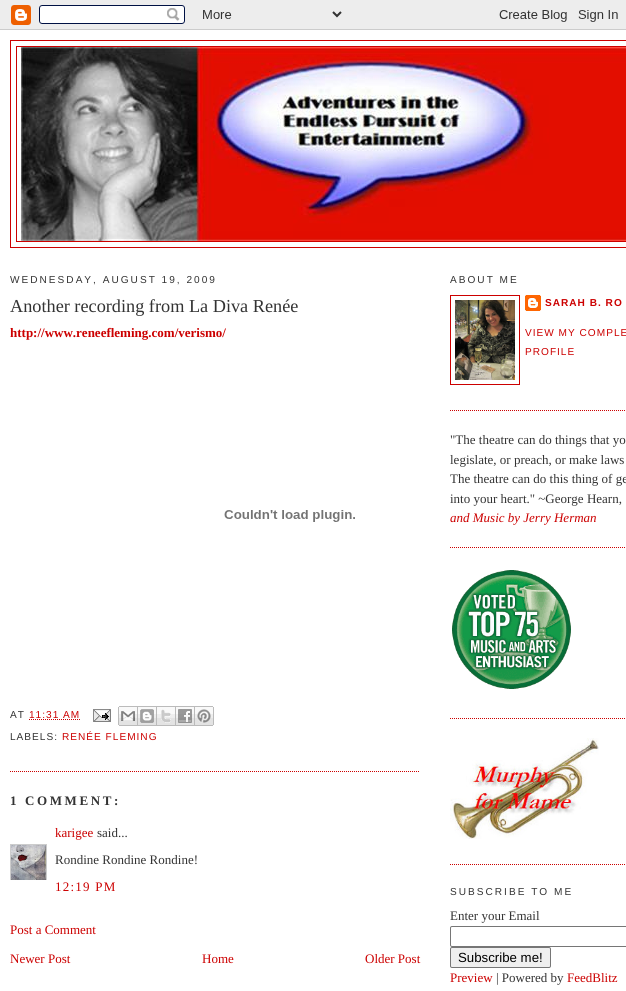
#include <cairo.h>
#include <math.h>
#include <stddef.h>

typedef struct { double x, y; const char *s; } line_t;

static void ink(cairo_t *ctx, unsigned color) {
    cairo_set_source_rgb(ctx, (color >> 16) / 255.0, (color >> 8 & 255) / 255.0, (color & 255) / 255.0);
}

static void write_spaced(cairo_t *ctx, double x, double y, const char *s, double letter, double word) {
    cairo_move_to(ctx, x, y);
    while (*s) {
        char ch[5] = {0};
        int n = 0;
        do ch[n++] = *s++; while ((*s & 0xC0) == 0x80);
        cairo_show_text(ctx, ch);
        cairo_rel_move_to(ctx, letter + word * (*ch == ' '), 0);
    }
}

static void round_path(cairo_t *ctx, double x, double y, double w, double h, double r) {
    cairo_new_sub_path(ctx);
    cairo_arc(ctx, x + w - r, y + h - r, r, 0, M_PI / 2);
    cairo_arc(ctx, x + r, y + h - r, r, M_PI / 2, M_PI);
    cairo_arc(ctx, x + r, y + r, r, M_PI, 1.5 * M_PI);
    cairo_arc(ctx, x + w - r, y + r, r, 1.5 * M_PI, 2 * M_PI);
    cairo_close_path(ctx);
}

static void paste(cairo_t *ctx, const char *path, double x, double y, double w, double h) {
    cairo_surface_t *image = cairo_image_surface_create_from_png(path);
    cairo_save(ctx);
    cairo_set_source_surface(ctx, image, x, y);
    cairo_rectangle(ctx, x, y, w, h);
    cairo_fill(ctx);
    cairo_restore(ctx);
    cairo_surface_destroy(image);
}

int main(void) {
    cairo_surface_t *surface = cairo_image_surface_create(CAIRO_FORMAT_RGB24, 626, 991);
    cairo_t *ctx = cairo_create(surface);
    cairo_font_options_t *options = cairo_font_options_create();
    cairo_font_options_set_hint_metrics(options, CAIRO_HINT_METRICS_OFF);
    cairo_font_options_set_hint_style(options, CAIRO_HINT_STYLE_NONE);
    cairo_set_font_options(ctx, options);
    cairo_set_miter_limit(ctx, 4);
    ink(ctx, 0xFFFFFF);
    cairo_paint(ctx);
    paste(ctx, "media/1.png", 0, 0, 626, 30);
    cairo_rectangle(ctx, 10.5, 40.5, 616, 207);
    ink(ctx, 0xCC0000);
    cairo_set_line_width(ctx, 1);
    cairo_stroke(ctx);
    cairo_rectangle(ctx, 16.5, 46.5, 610, 195);
    cairo_stroke(ctx);
    paste(ctx, "media/2.png", 21, 47, 605, 194);
    cairo_select_font_face(ctx, "Liberation Sans", CAIRO_FONT_SLANT_NORMAL, CAIRO_FONT_WEIGHT_NORMAL);
    cairo_set_font_size(ctx, 10.1);
    ink(ctx, 0x333333);
    write_spaced(ctx, 10, 283, "WEDNESDAY, AUGUST 19, 2009", 2, 0);
    cairo_new_path(ctx);
    cairo_move_to(ctx, 10, 771.5);
    cairo_line_to(ctx, 420, 771.5);
    ink(ctx, 0xCC0000);
    cairo_set_dash(ctx, (double[]){1, 1}, 2, 0);
    cairo_stroke(ctx);
    cairo_select_font_face(ctx, "Liberation Serif", CAIRO_FONT_SLANT_NORMAL, CAIRO_FONT_WEIGHT_NORMAL);
    cairo_set_font_size(ctx, 18.25);
    ink(ctx, 0x333333);
    cairo_move_to(ctx, 10, 312);
    cairo_show_text(ctx, "Another recording from La Diva Renée");
    cairo_select_font_face(ctx, "Liberation Serif", CAIRO_FONT_SLANT_NORMAL, CAIRO_FONT_WEIGHT_BOLD);
    cairo_set_font_size(ctx, 13);
    ink(ctx, 0xCC0000);
    cairo_move_to(ctx, 10, 337);
    cairo_show_text(ctx, "http://www.reneefleming.com/verismo/");
    paste(ctx, "media/3.png", 224, 510, 131, 12);
    cairo_select_font_face(ctx, "Liberation Sans", CAIRO_FONT_SLANT_NORMAL, CAIRO_FONT_WEIGHT_NORMAL);
    cairo_set_font_size(ctx, 10.1);
    ink(ctx, 0x333333);
    write_spaced(ctx, 10, 718, "AT", 1, 0);
    ink(ctx, 0xCC0000);
    write_spaced(ctx, 29, 718, "11:31 AM", 1, 0);
    cairo_new_path(ctx);
    cairo_move_to(ctx, 29, 719.5);
    cairo_line_to(ctx, 80, 719.5);
    cairo_stroke(ctx);
    paste(ctx, "media/4.png", 93, 709, 18, 13);
    paste(ctx, "media/5.png", 118, 706, 20, 20);
    paste(ctx, "media/6.png", 138, 706, 19, 20);
    paste(ctx, "media/7.png", 157, 706, 19, 20);
    paste(ctx, "media/8.png", 176, 706, 19, 20);
    paste(ctx, "media/9.png", 195, 706, 19, 20);
    ink(ctx, 0x333333);
    write_spaced(ctx, 10, 740, "LABELS:", 1, 0);
    ink(ctx, 0xCC0000);
    write_spaced(ctx, 62, 740, "RENÉE FLEMING", 1, 0);
    cairo_select_font_face(ctx, "Liberation Serif", CAIRO_FONT_SLANT_NORMAL, CAIRO_FONT_WEIGHT_BOLD);
    cairo_set_font_size(ctx, 13);
    ink(ctx, 0x333333);
    write_spaced(ctx, 10, 805, "1 COMMENT:", 2.6, 0);
    cairo_select_font_face(ctx, "Liberation Serif", CAIRO_FONT_SLANT_NORMAL, CAIRO_FONT_WEIGHT_NORMAL);
    ink(ctx, 0xCC0000);
    cairo_move_to(ctx, 55, 837);
    cairo_show_text(ctx, "karigee");
    ink(ctx, 0x333333);
    cairo_move_to(ctx, 97, 837);
    cairo_show_text(ctx, "said...");
    cairo_save(ctx);
    cairo_rectangle(ctx, 10, 844, 37, 36);
    cairo_clip(ctx);
    cairo_rectangle(ctx, 10.5, 844.5, 36, 36);
    ink(ctx, 0xCCCCCC);
    cairo_set_dash(ctx, NULL, 0, 0);
    cairo_stroke(ctx);
    cairo_restore(ctx);
    paste(ctx, "media/10.png", 11, 845, 35, 35);
    cairo_move_to(ctx, 55, 864);
    cairo_show_text(ctx, "Rondine Rondine Rondine!");
    ink(ctx, 0xCC0000);
    write_spaced(ctx, 55, 891, "12:19 PM", 1.25, 0);
    {
        static const line_t items[] = {
            {10, 934, "Post a Comment"},
            {10, 963, "Newer Post"},
            {202, 963, "Home"},
            {365, 963, "Older Post"},
        };
        for (size_t i = 0; i < sizeof items / sizeof *items; i++) {
            cairo_move_to(ctx, items[i].x, items[i].y);
            cairo_show_text(ctx, items[i].s);
        }
    }
    cairo_new_path(ctx);
    cairo_move_to(ctx, 450, 410.5);
    cairo_line_to(ctx, 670, 410.5);
    cairo_stroke(ctx);
    cairo_select_font_face(ctx, "Liberation Sans", CAIRO_FONT_SLANT_NORMAL, CAIRO_FONT_WEIGHT_NORMAL);
    cairo_set_font_size(ctx, 10.1);
    ink(ctx, 0x333333);
    write_spaced(ctx, 450, 283, "ABOUT ME", 2, 0);
    cairo_rectangle(ctx, 450.5, 295.5, 69, 89);
    ink(ctx, 0xCC0000);
    cairo_set_dash(ctx, NULL, 0, 0);
    cairo_stroke(ctx);
    paste(ctx, "media/11.png", 455, 300, 60, 80);
    paste(ctx, "media/12.png", 525, 295, 16, 16);
    cairo_select_font_face(ctx, "Liberation Sans", CAIRO_FONT_SLANT_NORMAL, CAIRO_FONT_WEIGHT_BOLD);
    write_spaced(ctx, 545, 306, "SARAH B. RO", 1, 0);
    cairo_select_font_face(ctx, "Liberation Sans", CAIRO_FONT_SLANT_NORMAL, CAIRO_FONT_WEIGHT_NORMAL);
    write_spaced(ctx, 525, 336, "VIEW MY COMPLE", 1, 0);
    write_spaced(ctx, 525, 355, "PROFILE", 1, 0);
    cairo_new_path(ctx);
    cairo_move_to(ctx, 450, 547.5);
    cairo_line_to(ctx, 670, 547.5);
    cairo_set_dash(ctx, (double[]){1, 1}, 2, 0);
    cairo_stroke(ctx);
    cairo_select_font_face(ctx, "Liberation Serif", CAIRO_FONT_SLANT_NORMAL, CAIRO_FONT_WEIGHT_NORMAL);
    cairo_set_font_size(ctx, 13);
    ink(ctx, 0x333333);
    {
        static const line_t items[] = {
            {450, 444, "\"The theatre can do things that yo"},
            {450, 464, "legislate, or preach, or make laws"},
            {450, 483, "The theatre can do this thing of ge"},
            {450, 503, "into your heart.\" ~George Hearn,"},
        };
        for (size_t i = 0; i < sizeof items / sizeof *items; i++) {
            cairo_move_to(ctx, items[i].x, items[i].y);
            cairo_show_text(ctx, items[i].s);
        }
    }
    cairo_select_font_face(ctx, "Liberation Serif", CAIRO_FONT_SLANT_ITALIC, CAIRO_FONT_WEIGHT_NORMAL);
    ink(ctx, 0xCC0000);
    cairo_move_to(ctx, 450, 522);
    cairo_show_text(ctx, "and Music by Jerry Herman");
    cairo_new_path(ctx);
    cairo_move_to(ctx, 450, 718.5);
    cairo_line_to(ctx, 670, 718.5);
    cairo_stroke(ctx);
    paste(ctx, "media/13.png", 452, 570, 119, 119);
    cairo_new_path(ctx);
    cairo_move_to(ctx, 450, 864.5);
    cairo_line_to(ctx, 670, 864.5);
    cairo_stroke(ctx);
    paste(ctx, "media/14.png", 450, 738, 149, 101);
    cairo_select_font_face(ctx, "Liberation Sans", CAIRO_FONT_SLANT_NORMAL, CAIRO_FONT_WEIGHT_NORMAL);
    cairo_set_font_size(ctx, 10.1);
    ink(ctx, 0x333333);
    write_spaced(ctx, 450, 895, "SUBSCRIBE TO ME", 2, 0);
    cairo_select_font_face(ctx, "Liberation Serif", CAIRO_FONT_SLANT_NORMAL, CAIRO_FONT_WEIGHT_NORMAL);
    cairo_set_font_size(ctx, 13);
    cairo_move_to(ctx, 450, 920);
    cairo_show_text(ctx, "Enter your Email");
    round_path(ctx, 450.5, 926.5, 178, 20, 1.5);
    ink(ctx, 0x767676);
    cairo_set_dash(ctx, NULL, 0, 0);
    cairo_stroke(ctx);
    ink(ctx, 0xEFEFEF);
    round_path(ctx, 450.5, 947.5, 100, 20, 1.5);
    cairo_fill_preserve(ctx);
    ink(ctx, 0x767676);
    cairo_stroke(ctx);
    cairo_select_font_face(ctx, "Liberation Sans", CAIRO_FONT_SLANT_NORMAL, CAIRO_FONT_WEIGHT_NORMAL);
    cairo_set_font_size(ctx, 13.25);
    ink(ctx, 0x000000);
    cairo_move_to(ctx, 458, 962);
    cairo_show_text(ctx, "Subscribe me!");
    cairo_select_font_face(ctx, "Liberation Serif", CAIRO_FONT_SLANT_NORMAL, CAIRO_FONT_WEIGHT_NORMAL);
    cairo_set_font_size(ctx, 13);
    ink(ctx, 0xCC0000);
    cairo_move_to(ctx, 450, 982);
    cairo_show_text(ctx, "Preview");
    ink(ctx, 0x333333);
    cairo_move_to(ctx, 496, 982);
    cairo_show_text(ctx, "| Powered by");
    ink(ctx, 0xCC0000);
    cairo_move_to(ctx, 567, 982);
    cairo_show_text(ctx, "FeedBlitz");
    cairo_surface_write_to_png(surface, "image.png");
    cairo_font_options_destroy(options);
    cairo_destroy(ctx);
    cairo_surface_destroy(surface);
    return 0;
}
